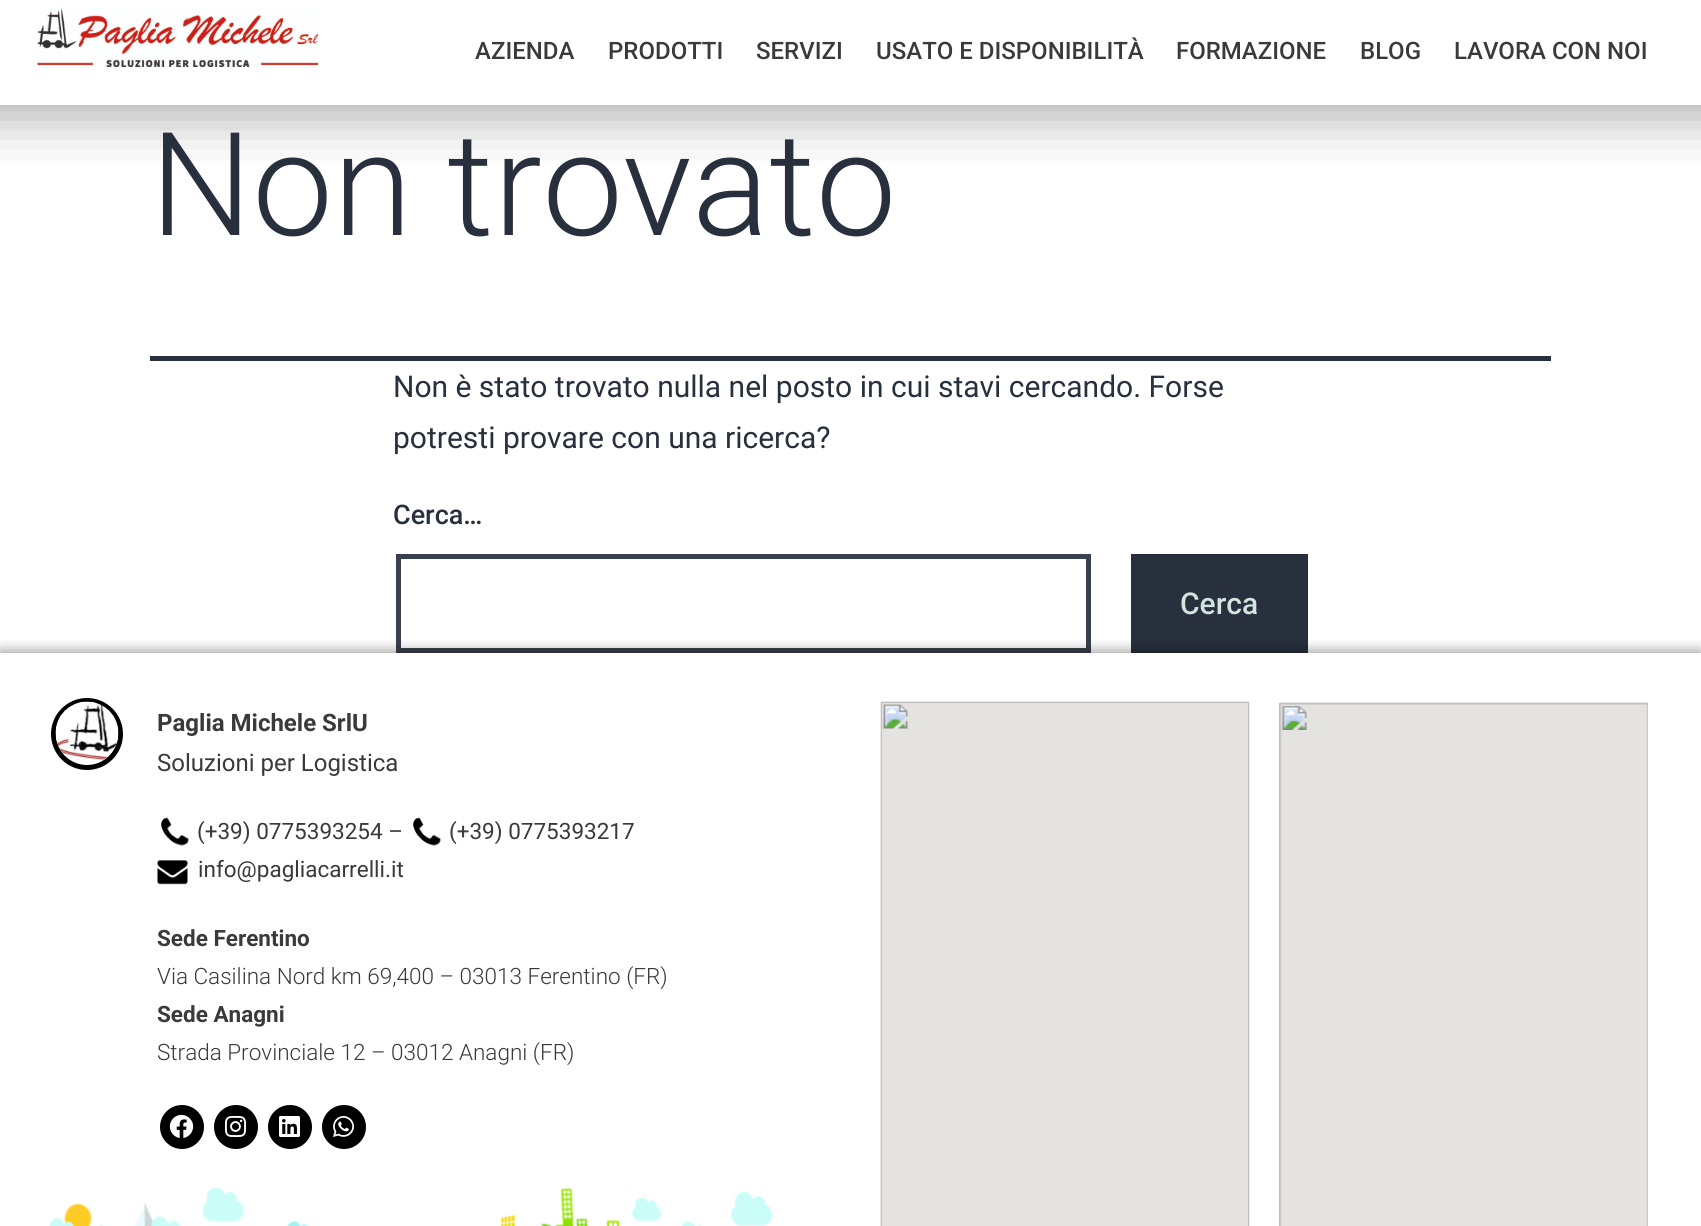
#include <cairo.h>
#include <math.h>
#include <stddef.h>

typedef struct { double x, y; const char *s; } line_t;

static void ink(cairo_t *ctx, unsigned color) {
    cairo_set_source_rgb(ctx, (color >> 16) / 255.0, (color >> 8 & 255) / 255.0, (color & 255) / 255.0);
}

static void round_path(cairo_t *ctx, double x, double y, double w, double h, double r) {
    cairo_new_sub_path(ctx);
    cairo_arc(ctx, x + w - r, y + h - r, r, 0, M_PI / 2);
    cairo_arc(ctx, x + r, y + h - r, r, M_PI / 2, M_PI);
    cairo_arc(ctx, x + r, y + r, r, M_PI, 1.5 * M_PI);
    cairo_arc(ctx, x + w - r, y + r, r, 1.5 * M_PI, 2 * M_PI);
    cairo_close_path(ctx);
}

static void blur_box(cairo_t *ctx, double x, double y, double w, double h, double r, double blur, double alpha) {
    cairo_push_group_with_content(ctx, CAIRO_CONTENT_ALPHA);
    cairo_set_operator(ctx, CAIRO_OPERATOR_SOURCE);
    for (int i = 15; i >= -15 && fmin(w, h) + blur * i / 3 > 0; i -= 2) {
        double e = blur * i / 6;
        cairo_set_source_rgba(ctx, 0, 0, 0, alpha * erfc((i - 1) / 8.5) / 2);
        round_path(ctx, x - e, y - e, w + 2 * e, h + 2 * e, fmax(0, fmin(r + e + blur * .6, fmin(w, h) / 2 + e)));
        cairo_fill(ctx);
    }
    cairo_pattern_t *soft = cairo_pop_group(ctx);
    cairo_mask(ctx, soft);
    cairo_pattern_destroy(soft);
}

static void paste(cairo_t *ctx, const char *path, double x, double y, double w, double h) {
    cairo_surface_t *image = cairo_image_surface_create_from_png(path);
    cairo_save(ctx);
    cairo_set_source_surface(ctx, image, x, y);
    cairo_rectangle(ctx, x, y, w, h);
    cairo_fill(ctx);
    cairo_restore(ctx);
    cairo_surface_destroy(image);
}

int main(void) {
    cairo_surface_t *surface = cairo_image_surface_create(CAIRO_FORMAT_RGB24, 1701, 1226);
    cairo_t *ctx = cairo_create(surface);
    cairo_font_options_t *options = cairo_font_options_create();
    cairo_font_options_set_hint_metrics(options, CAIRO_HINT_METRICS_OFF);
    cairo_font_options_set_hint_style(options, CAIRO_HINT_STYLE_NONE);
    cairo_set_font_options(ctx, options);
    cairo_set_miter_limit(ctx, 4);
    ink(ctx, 0xFFFFFF);
    cairo_paint(ctx);
    cairo_save(ctx);
    cairo_rectangle(ctx, 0, 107, 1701, 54);
    cairo_clip(ctx);
    ink(ctx, 0x000000);
    blur_box(ctx, -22, -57, 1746, 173, 0, 28.5, 0.34);
    cairo_restore(ctx);
    ink(ctx, 0xC6C6C6);
    cairo_rectangle(ctx, 0, 105, 1701, 2);
    cairo_fill(ctx);
    paste(ctx, "media/1.png", 37, 8, 281, 59);
    cairo_select_font_face(ctx, "Roboto Medium", CAIRO_FONT_SLANT_NORMAL, CAIRO_FONT_WEIGHT_NORMAL);
    cairo_set_font_size(ctx, 24);
    ink(ctx, 0x3A3A3A);
    {
        static const line_t items[] = {
            {475, 59, "AZIENDA"},
            {608, 59, "PRODOTTI"},
            {756, 59, "SERVIZI"},
            {876, 59, "USATO E DISPONIBILITÀ"},
            {1176, 59, "FORMAZIONE"},
            {1360, 59, "BLOG"},
            {1454, 59, "LAVORA CON NOI"},
        };
        for (size_t i = 0; i < sizeof items / sizeof *items; i++) {
            cairo_move_to(ctx, items[i].x, items[i].y);
            cairo_show_text(ctx, items[i].s);
        }
    }
    ink(ctx, 0x28303D);
    cairo_rectangle(ctx, 150, 356, 1401, 5);
    cairo_fill(ctx);
    cairo_select_font_face(ctx, "Roboto Light", CAIRO_FONT_SLANT_NORMAL, CAIRO_FONT_WEIGHT_NORMAL);
    cairo_set_font_size(ctx, 144);
    cairo_move_to(ctx, 150, 235);
    cairo_show_text(ctx, "Non trovato");
    cairo_select_font_face(ctx, "Roboto", CAIRO_FONT_SLANT_NORMAL, CAIRO_FONT_WEIGHT_NORMAL);
    cairo_set_font_size(ctx, 30);
    cairo_move_to(ctx, 393, 397);
    cairo_show_text(ctx, "Non è stato trovato nulla nel posto in cui stavi cercando. Forse");
    cairo_move_to(ctx, 393, 448);
    cairo_show_text(ctx, "potresti provare con una ricerca?");
    cairo_select_font_face(ctx, "Roboto Medium", CAIRO_FONT_SLANT_NORMAL, CAIRO_FONT_WEIGHT_NORMAL);
    cairo_set_font_size(ctx, 27);
    cairo_move_to(ctx, 393, 524);
    cairo_show_text(ctx, "Cerca…");
    cairo_rectangle(ctx, 398.5, 556.5, 690, 94);
    ink(ctx, 0x39414D);
    cairo_set_line_width(ctx, 5);
    cairo_stroke(ctx);
    ink(ctx, 0x28303D);
    cairo_rectangle(ctx, 1131, 554, 177, 99);
    cairo_fill(ctx);
    cairo_set_font_size(ctx, 30);
    ink(ctx, 0xD1E4DD);
    cairo_move_to(ctx, 1180, 614);
    cairo_show_text(ctx, "Cerca");
    cairo_save(ctx);
    cairo_rectangle(ctx, 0, 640, 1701, 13);
    cairo_clip(ctx);
    ink(ctx, 0x000000);
    blur_box(ctx, 0, 653, 1701, 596, 0, 7.5, 0.5);
    cairo_restore(ctx);
    cairo_arc(ctx, 87, 734, 33.5, 0, 2 * M_PI);
    ink(ctx, 0x020101);
    cairo_stroke(ctx);
    paste(ctx, "media/2.png", 55, 701, 64, 62);
    cairo_select_font_face(ctx, "Roboto", CAIRO_FONT_SLANT_NORMAL, CAIRO_FONT_WEIGHT_BOLD);
    cairo_set_font_size(ctx, 24);
    ink(ctx, 0x3A3A3A);
    cairo_move_to(ctx, 157, 731);
    cairo_show_text(ctx, "Paglia Michele SrlU");
    cairo_select_font_face(ctx, "Roboto", CAIRO_FONT_SLANT_NORMAL, CAIRO_FONT_WEIGHT_NORMAL);
    cairo_move_to(ctx, 157, 771);
    cairo_show_text(ctx, "Soluzioni per Logistica");
    paste(ctx, "media/3.png", 161, 817, 28, 29);
    cairo_set_font_size(ctx, 22.5);
    cairo_move_to(ctx, 197, 839);
    cairo_show_text(ctx, "(+39) 0775393254 –");
    paste(ctx, "media/3.png", 413, 817, 28, 29);
    cairo_move_to(ctx, 449, 839);
    cairo_show_text(ctx, "(+39) 0775393217");
    paste(ctx, "media/4.png", 157, 860, 31, 25);
    cairo_move_to(ctx, 198, 877);
    cairo_show_text(ctx, "info@pagliacarrelli.it");
    cairo_select_font_face(ctx, "Roboto", CAIRO_FONT_SLANT_NORMAL, CAIRO_FONT_WEIGHT_BOLD);
    cairo_move_to(ctx, 157, 946);
    cairo_show_text(ctx, "Sede Ferentino");
    cairo_select_font_face(ctx, "Roboto Light", CAIRO_FONT_SLANT_NORMAL, CAIRO_FONT_WEIGHT_NORMAL);
    cairo_move_to(ctx, 157, 984);
    cairo_show_text(ctx, "Via Casilina Nord km 69,400 – 03013 Ferentino (FR)");
    cairo_select_font_face(ctx, "Roboto", CAIRO_FONT_SLANT_NORMAL, CAIRO_FONT_WEIGHT_BOLD);
    cairo_move_to(ctx, 157, 1022);
    cairo_show_text(ctx, "Sede Anagni");
    cairo_select_font_face(ctx, "Roboto Light", CAIRO_FONT_SLANT_NORMAL, CAIRO_FONT_WEIGHT_NORMAL);
    cairo_move_to(ctx, 157, 1060);
    cairo_show_text(ctx, "Strada Provinciale 12 – 03012 Anagni (FR)");
    ink(ctx, 0x000000);
    cairo_new_path(ctx);
    cairo_arc(ctx, 182, 1127, 23, 0, 2 * M_PI);
    cairo_fill_preserve(ctx);
    ink(ctx, 0xFFFFFF);
    cairo_set_line_width(ctx, 2);
    cairo_stroke(ctx);
    paste(ctx, "media/5.png", 169, 1114, 25, 24);
    ink(ctx, 0x000000);
    cairo_arc(ctx, 236, 1127, 23, 0, 2 * M_PI);
    cairo_fill_preserve(ctx);
    ink(ctx, 0xFFFFFF);
    cairo_stroke(ctx);
    paste(ctx, "media/6.png", 225, 1115, 22, 22);
    ink(ctx, 0x000000);
    cairo_arc(ctx, 290, 1127, 23, 0, 2 * M_PI);
    cairo_fill_preserve(ctx);
    ink(ctx, 0xFFFFFF);
    cairo_stroke(ctx);
    paste(ctx, "media/7.png", 279, 1116, 21, 21);
    ink(ctx, 0x000000);
    cairo_arc(ctx, 344, 1127, 23, 0, 2 * M_PI);
    cairo_fill_preserve(ctx);
    ink(ctx, 0xFFFFFF);
    cairo_stroke(ctx);
    paste(ctx, "media/8.png", 333, 1116, 21, 21);
    paste(ctx, "media/9.png", 49, 1187, 724, 39);
    paste(ctx, "media/10.png", 880, 701, 370, 525);
    paste(ctx, "media/11.png", 1279, 702, 369, 524);
    cairo_surface_write_to_png(surface, "image.png");
    cairo_font_options_destroy(options);
    cairo_destroy(ctx);
    cairo_surface_destroy(surface);
    return 0;
}
